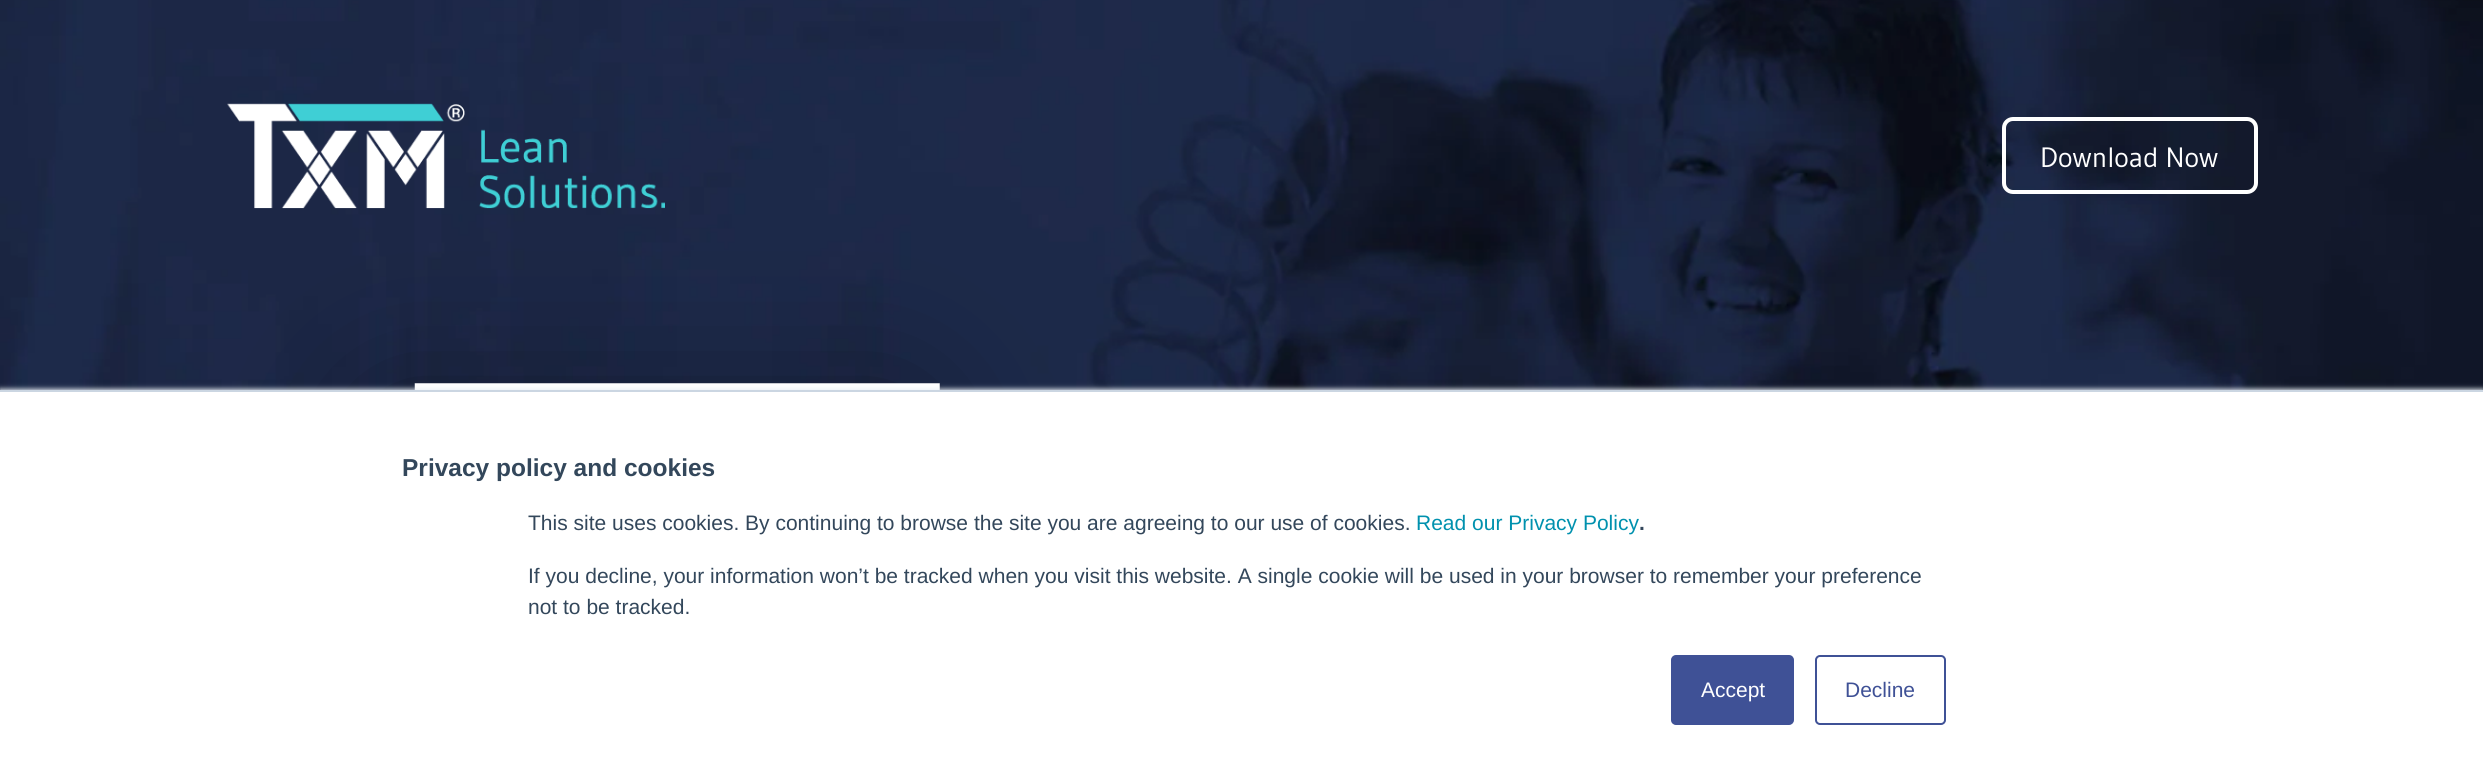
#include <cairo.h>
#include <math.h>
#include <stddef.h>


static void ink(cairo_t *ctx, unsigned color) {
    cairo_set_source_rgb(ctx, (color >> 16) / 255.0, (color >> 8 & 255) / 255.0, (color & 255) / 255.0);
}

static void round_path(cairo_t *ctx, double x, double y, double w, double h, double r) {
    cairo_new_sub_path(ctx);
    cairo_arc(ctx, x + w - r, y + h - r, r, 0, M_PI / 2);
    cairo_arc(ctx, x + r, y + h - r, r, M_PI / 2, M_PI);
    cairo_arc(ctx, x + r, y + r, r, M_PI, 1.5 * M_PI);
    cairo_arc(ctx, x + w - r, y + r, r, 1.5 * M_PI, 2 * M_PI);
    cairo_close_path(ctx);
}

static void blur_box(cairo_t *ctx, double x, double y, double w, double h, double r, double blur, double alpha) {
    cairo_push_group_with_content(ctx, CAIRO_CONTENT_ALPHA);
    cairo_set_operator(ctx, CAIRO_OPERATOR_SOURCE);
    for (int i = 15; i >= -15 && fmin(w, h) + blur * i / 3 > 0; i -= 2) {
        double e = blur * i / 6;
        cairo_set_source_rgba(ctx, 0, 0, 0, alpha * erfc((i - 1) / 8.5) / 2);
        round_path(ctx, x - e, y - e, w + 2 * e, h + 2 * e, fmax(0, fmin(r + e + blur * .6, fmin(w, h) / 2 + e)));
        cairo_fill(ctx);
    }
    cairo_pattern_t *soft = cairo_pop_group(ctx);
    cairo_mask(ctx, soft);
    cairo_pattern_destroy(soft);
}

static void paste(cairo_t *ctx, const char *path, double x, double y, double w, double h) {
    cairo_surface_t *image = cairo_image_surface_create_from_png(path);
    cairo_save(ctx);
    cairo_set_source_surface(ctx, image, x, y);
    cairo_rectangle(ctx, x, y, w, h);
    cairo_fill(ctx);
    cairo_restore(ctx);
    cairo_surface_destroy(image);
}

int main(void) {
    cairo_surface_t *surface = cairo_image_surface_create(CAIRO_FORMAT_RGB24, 2483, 769);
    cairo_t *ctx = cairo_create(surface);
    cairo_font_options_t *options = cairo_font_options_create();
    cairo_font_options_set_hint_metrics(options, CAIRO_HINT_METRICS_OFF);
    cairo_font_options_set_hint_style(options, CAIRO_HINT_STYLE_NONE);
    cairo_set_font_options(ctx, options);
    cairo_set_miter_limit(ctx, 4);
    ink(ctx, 0xFFFFFF);
    cairo_paint(ctx);
    paste(ctx, "media/1.png", 0, 0, 2483, 390);
    paste(ctx, "media/2.png", 227, 103, 438, 106);
    round_path(ctx, 2004, 119, 252, 73, 9);
    ink(ctx, 0xFFFFFF);
    cairo_set_line_width(ctx, 4);
    cairo_stroke(ctx);
    cairo_select_font_face(ctx, "Gudea", CAIRO_FONT_SLANT_NORMAL, CAIRO_FONT_WEIGHT_NORMAL);
    cairo_set_font_size(ctx, 28);
    cairo_move_to(ctx, 2040, 167);
    cairo_show_text(ctx, "Download Now");
    ink(ctx, 0x000000);
    blur_box(ctx, 383, 413, 525, 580, 0, 74.5, 0.45);
    paste(ctx, "media/3.png", 414, 383, 526, 7);
    ink(ctx, 0xEAF0F6);
    blur_box(ctx, 0, 389, 2483, 379, 0, 2.5, 1);
    ink(ctx, 0xFFFFFF);
    cairo_rectangle(ctx, 0, 392, 2483, 377);
    cairo_fill(ctx);
    ink(ctx, 0xCBD6E2);
    cairo_rectangle(ctx, 0, 390, 2483, 2);
    cairo_fill(ctx);
    cairo_select_font_face(ctx, "Liberation Sans", CAIRO_FONT_SLANT_NORMAL, CAIRO_FONT_WEIGHT_BOLD);
    cairo_set_font_size(ctx, 24.5);
    ink(ctx, 0x33475B);
    cairo_move_to(ctx, 402, 476);
    cairo_show_text(ctx, "Privacy policy and cookies");
    cairo_select_font_face(ctx, "Liberation Sans", CAIRO_FONT_SLANT_NORMAL, CAIRO_FONT_WEIGHT_NORMAL);
    cairo_set_font_size(ctx, 21);
    cairo_move_to(ctx, 528, 530);
    cairo_show_text(ctx, "This site uses cookies. By continuing to browse the site you are agreeing to our use of cookies.");
    ink(ctx, 0x0091AE);
    cairo_move_to(ctx, 1416, 530);
    cairo_show_text(ctx, "Read our Privacy Policy");
    cairo_select_font_face(ctx, "Liberation Sans", CAIRO_FONT_SLANT_NORMAL, CAIRO_FONT_WEIGHT_BOLD);
    ink(ctx, 0x33475B);
    cairo_move_to(ctx, 1639, 530);
    cairo_show_text(ctx, ".");
    cairo_select_font_face(ctx, "Liberation Sans", CAIRO_FONT_SLANT_NORMAL, CAIRO_FONT_WEIGHT_NORMAL);
    cairo_move_to(ctx, 528, 583);
    cairo_show_text(ctx, "If you decline, your information won’t be tracked when you visit this website. A single cookie will be used in your browser to remember your preference");
    cairo_move_to(ctx, 528, 614);
    cairo_show_text(ctx, "not to be tracked.");
    ink(ctx, 0x3F5196);
    round_path(ctx, 1672, 656, 121, 68, 4);
    cairo_fill_preserve(ctx);
    cairo_set_line_width(ctx, 2);
    cairo_stroke(ctx);
    ink(ctx, 0xFFFFFF);
    cairo_move_to(ctx, 1701, 697);
    cairo_show_text(ctx, "Accept");
    round_path(ctx, 1816, 656, 129, 68, 4);
    ink(ctx, 0x3F5196);
    cairo_stroke(ctx);
    cairo_move_to(ctx, 1845, 697);
    cairo_show_text(ctx, "Decline");
    cairo_surface_write_to_png(surface, "image.png");
    cairo_font_options_destroy(options);
    cairo_destroy(ctx);
    cairo_surface_destroy(surface);
    return 0;
}
